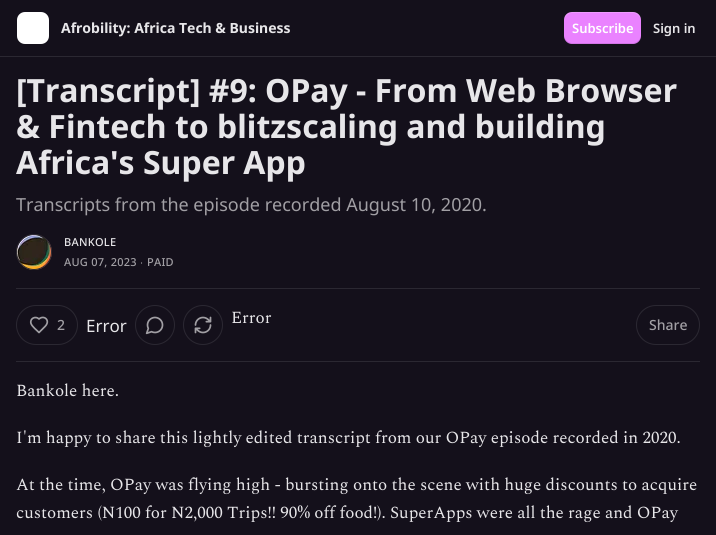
#include <cairo.h>
#include <math.h>
#include <stddef.h>

typedef struct { double x, y; const char *s; } line_t;

static void ink(cairo_t *ctx, unsigned color) {
    cairo_set_source_rgb(ctx, (color >> 16) / 255.0, (color >> 8 & 255) / 255.0, (color & 255) / 255.0);
}

static void write_spaced(cairo_t *ctx, double x, double y, const char *s, double letter, double word) {
    cairo_move_to(ctx, x, y);
    while (*s) {
        char ch[5] = {0};
        int n = 0;
        do ch[n++] = *s++; while ((*s & 0xC0) == 0x80);
        cairo_show_text(ctx, ch);
        cairo_rel_move_to(ctx, letter + word * (*ch == ' '), 0);
    }
}

static void round_path(cairo_t *ctx, double x, double y, double w, double h, double r) {
    cairo_new_sub_path(ctx);
    cairo_arc(ctx, x + w - r, y + h - r, r, 0, M_PI / 2);
    cairo_arc(ctx, x + r, y + h - r, r, M_PI / 2, M_PI);
    cairo_arc(ctx, x + r, y + r, r, M_PI, 1.5 * M_PI);
    cairo_arc(ctx, x + w - r, y + r, r, 1.5 * M_PI, 2 * M_PI);
    cairo_close_path(ctx);
}

static void paste(cairo_t *ctx, const char *path, double x, double y, double w, double h) {
    cairo_surface_t *image = cairo_image_surface_create_from_png(path);
    cairo_save(ctx);
    cairo_set_source_surface(ctx, image, x, y);
    cairo_rectangle(ctx, x, y, w, h);
    cairo_fill(ctx);
    cairo_restore(ctx);
    cairo_surface_destroy(image);
}

int main(void) {
    cairo_surface_t *surface = cairo_image_surface_create(CAIRO_FORMAT_RGB24, 716, 535);
    cairo_t *ctx = cairo_create(surface);
    cairo_font_options_t *options = cairo_font_options_create();
    cairo_font_options_set_hint_metrics(options, CAIRO_HINT_METRICS_OFF);
    cairo_font_options_set_hint_style(options, CAIRO_HINT_STYLE_NONE);
    cairo_set_font_options(ctx, options);
    cairo_set_miter_limit(ctx, 4);
    ink(ctx, 0x14101B);
    cairo_paint(ctx);
    ink(ctx, 0x2B2832);
    cairo_rectangle(ctx, 0, 56, 716, 1);
    cairo_fill(ctx);
    ink(ctx, 0xFFFFFF);
    round_path(ctx, 17, 12, 32, 32, 8);
    cairo_fill(ctx);
    cairo_select_font_face(ctx, "Noto Sans", CAIRO_FONT_SLANT_NORMAL, CAIRO_FONT_WEIGHT_BOLD);
    cairo_set_font_size(ctx, 14);
    ink(ctx, 0xE7E6E9);
    cairo_move_to(ctx, 61, 33);
    cairo_show_text(ctx, "Afrobility: Africa Tech & Business");
    ink(ctx, 0xEA82FF);
    round_path(ctx, 564, 12, 77, 32, 8);
    cairo_fill(ctx);
    cairo_set_source_rgba(ctx, 0, 0, 0, 0.1);
    cairo_new_path(ctx);
    cairo_move_to(ctx, 564, 35);
    cairo_curve_to(ctx, 564, 46, 574, 44, 582, 44);
    cairo_line_to(ctx, 623, 44);
    cairo_curve_to(ctx, 631, 44, 641, 46, 641, 35);
    cairo_curve_to(ctx, 641, 39, 637, 43, 633, 43);
    cairo_line_to(ctx, 572, 43);
    cairo_curve_to(ctx, 568, 43, 564, 39, 564, 35);
    cairo_close_path(ctx);
    cairo_fill(ctx);
    cairo_set_source_rgba(ctx, 1, 1, 1, 0.2);
    cairo_new_path(ctx);
    cairo_move_to(ctx, 572, 13);
    cairo_line_to(ctx, 633, 13);
    cairo_curve_to(ctx, 637, 13, 641, 17, 641, 21);
    cairo_curve_to(ctx, 641, 10, 631, 12, 623, 12);
    cairo_line_to(ctx, 582, 12);
    cairo_curve_to(ctx, 574, 12, 564, 10, 564, 21);
    cairo_curve_to(ctx, 564, 17, 568, 13, 572, 13);
    cairo_close_path(ctx);
    cairo_fill(ctx);
    cairo_select_font_face(ctx, "Noto Sans SemiBold", CAIRO_FONT_SLANT_NORMAL, CAIRO_FONT_WEIGHT_NORMAL);
    cairo_set_font_size(ctx, 13);
    ink(ctx, 0xFFFFFF);
    cairo_move_to(ctx, 572, 33);
    cairo_show_text(ctx, "Subscribe");
    ink(ctx, 0xE7E6E9);
    cairo_move_to(ctx, 653, 33);
    cairo_show_text(ctx, "Sign in");
    cairo_select_font_face(ctx, "Noto Sans", CAIRO_FONT_SLANT_NORMAL, CAIRO_FONT_WEIGHT_BOLD);
    cairo_set_font_size(ctx, 32);
    {
        static const line_t items[] = {
            {16, 102, "[Transcript] #9: OPay - From Web Browser"},
            {16, 138, "& Fintech to blitzscaling and building"},
            {16, 174, "Africa's Super App"},
        };
        for (size_t i = 0; i < sizeof items / sizeof *items; i++) {
            cairo_move_to(ctx, items[i].x, items[i].y);
            cairo_show_text(ctx, items[i].s);
        }
    }
    cairo_select_font_face(ctx, "Noto Sans", CAIRO_FONT_SLANT_NORMAL, CAIRO_FONT_WEIGHT_NORMAL);
    cairo_set_font_size(ctx, 18);
    ink(ctx, 0xA19FA4);
    cairo_move_to(ctx, 16, 211);
    cairo_show_text(ctx, "Transcripts from the episode recorded August 10, 2020.");
    cairo_new_path(ctx);
    cairo_arc(ctx, 34, 252, 17.5, 0, 2 * M_PI);
    ink(ctx, 0x2B2832);
    cairo_set_line_width(ctx, 1);
    cairo_stroke(ctx);
    paste(ctx, "media/1.png", 16, 234, 36, 36);
    cairo_arc(ctx, 34, 252, 17.5, 0, 2 * M_PI);
    cairo_stroke(ctx);
    cairo_select_font_face(ctx, "Noto Sans Medium", CAIRO_FONT_SLANT_NORMAL, CAIRO_FONT_WEIGHT_NORMAL);
    cairo_set_font_size(ctx, 11);
    ink(ctx, 0xE7E6E9);
    write_spaced(ctx, 64, 246, "BANKOLE", 0.25, 0);
    ink(ctx, 0xA19FA4);
    write_spaced(ctx, 64, 266, "AUG 07, 2023", 0.25, 0);
    cairo_select_font_face(ctx, "Liberation Sans", CAIRO_FONT_SLANT_NORMAL, CAIRO_FONT_WEIGHT_NORMAL);
    write_spaced(ctx, 140, 266, "∙", 0.25, 0);
    cairo_select_font_face(ctx, "Noto Sans Medium", CAIRO_FONT_SLANT_NORMAL, CAIRO_FONT_WEIGHT_NORMAL);
    write_spaced(ctx, 147, 266, "PAID", 0.25, 0);
    ink(ctx, 0x2B2832);
    cairo_rectangle(ctx, 16, 288, 684, 1);
    cairo_fill(ctx);
    cairo_rectangle(ctx, 16, 361, 684, 1);
    cairo_fill(ctx);
    cairo_arc(ctx, 155, 325, 19.5, 0, 2 * M_PI);
    cairo_stroke(ctx);
    paste(ctx, "media/2.png", 145, 316, 19, 19);
    cairo_arc(ctx, 203, 325, 19.5, 0, 2 * M_PI);
    cairo_stroke(ctx);
    paste(ctx, "media/3.png", 194, 316, 18, 18);
    cairo_select_font_face(ctx, "Spectral", CAIRO_FONT_SLANT_NORMAL, CAIRO_FONT_WEIGHT_NORMAL);
    cairo_set_font_size(ctx, 17);
    ink(ctx, 0xE7E6E9);
    cairo_move_to(ctx, 231, 323);
    cairo_show_text(ctx, "Error");
    round_path(ctx, 16.5, 305.5, 61, 39, 19.5);
    ink(ctx, 0x2B2832);
    cairo_stroke(ctx);
    cairo_new_path(ctx);
    cairo_move_to(ctx, 45, 326.5);
    cairo_curve_to(ctx, 51, 320.5, 44, 314.5, 39, 319);
    cairo_curve_to(ctx, 35.5, 315.5, 29.5, 318.5, 31, 323.5);
    cairo_curve_to(ctx, 32, 326.5, 37, 330.5, 39, 332.5);
    cairo_close_path(ctx);
    ink(ctx, 0xA19FA4);
    cairo_set_line_width(ctx, 1.7);
    cairo_set_line_cap(ctx, CAIRO_LINE_CAP_ROUND);
    cairo_set_line_join(ctx, CAIRO_LINE_JOIN_ROUND);
    cairo_stroke(ctx);
    cairo_select_font_face(ctx, "Noto Sans Medium", CAIRO_FONT_SLANT_NORMAL, CAIRO_FONT_WEIGHT_NORMAL);
    cairo_set_font_size(ctx, 14);
    cairo_move_to(ctx, 57, 330);
    cairo_show_text(ctx, "2");
    cairo_select_font_face(ctx, "Noto Sans", CAIRO_FONT_SLANT_NORMAL, CAIRO_FONT_WEIGHT_NORMAL);
    cairo_set_font_size(ctx, 17);
    ink(ctx, 0xE7E6E9);
    cairo_move_to(ctx, 86, 332);
    cairo_show_text(ctx, "Error");
    round_path(ctx, 636.5, 305.5, 63, 39, 19.5);
    ink(ctx, 0x2B2832);
    cairo_set_line_width(ctx, 1);
    cairo_set_line_cap(ctx, CAIRO_LINE_CAP_BUTT);
    cairo_set_line_join(ctx, CAIRO_LINE_JOIN_MITER);
    cairo_stroke(ctx);
    cairo_select_font_face(ctx, "Noto Sans Medium", CAIRO_FONT_SLANT_NORMAL, CAIRO_FONT_WEIGHT_NORMAL);
    cairo_set_font_size(ctx, 14);
    ink(ctx, 0xA19FA4);
    cairo_move_to(ctx, 649, 330);
    cairo_show_text(ctx, "Share");
    cairo_select_font_face(ctx, "Spectral", CAIRO_FONT_SLANT_NORMAL, CAIRO_FONT_WEIGHT_NORMAL);
    cairo_set_font_size(ctx, 17);
    ink(ctx, 0xE7E6E9);
    {
        static const line_t items[] = {
            {16, 396, "Bankole here."},
            {16, 443, "I'm happy to share this lightly edited transcript from our OPay episode recorded in 2020."},
            {16, 490, "At the time, OPay was flying high - bursting onto the scene with huge discounts to acquire"},
            {16, 518, "customers (N100 for N2,000 Trips!! 90% off food!). SuperApps were all the rage and OPay"},
        };
        for (size_t i = 0; i < sizeof items / sizeof *items; i++) {
            cairo_move_to(ctx, items[i].x, items[i].y);
            cairo_show_text(ctx, items[i].s);
        }
    }
    cairo_surface_write_to_png(surface, "image.png");
    cairo_font_options_destroy(options);
    cairo_destroy(ctx);
    cairo_surface_destroy(surface);
    return 0;
}
